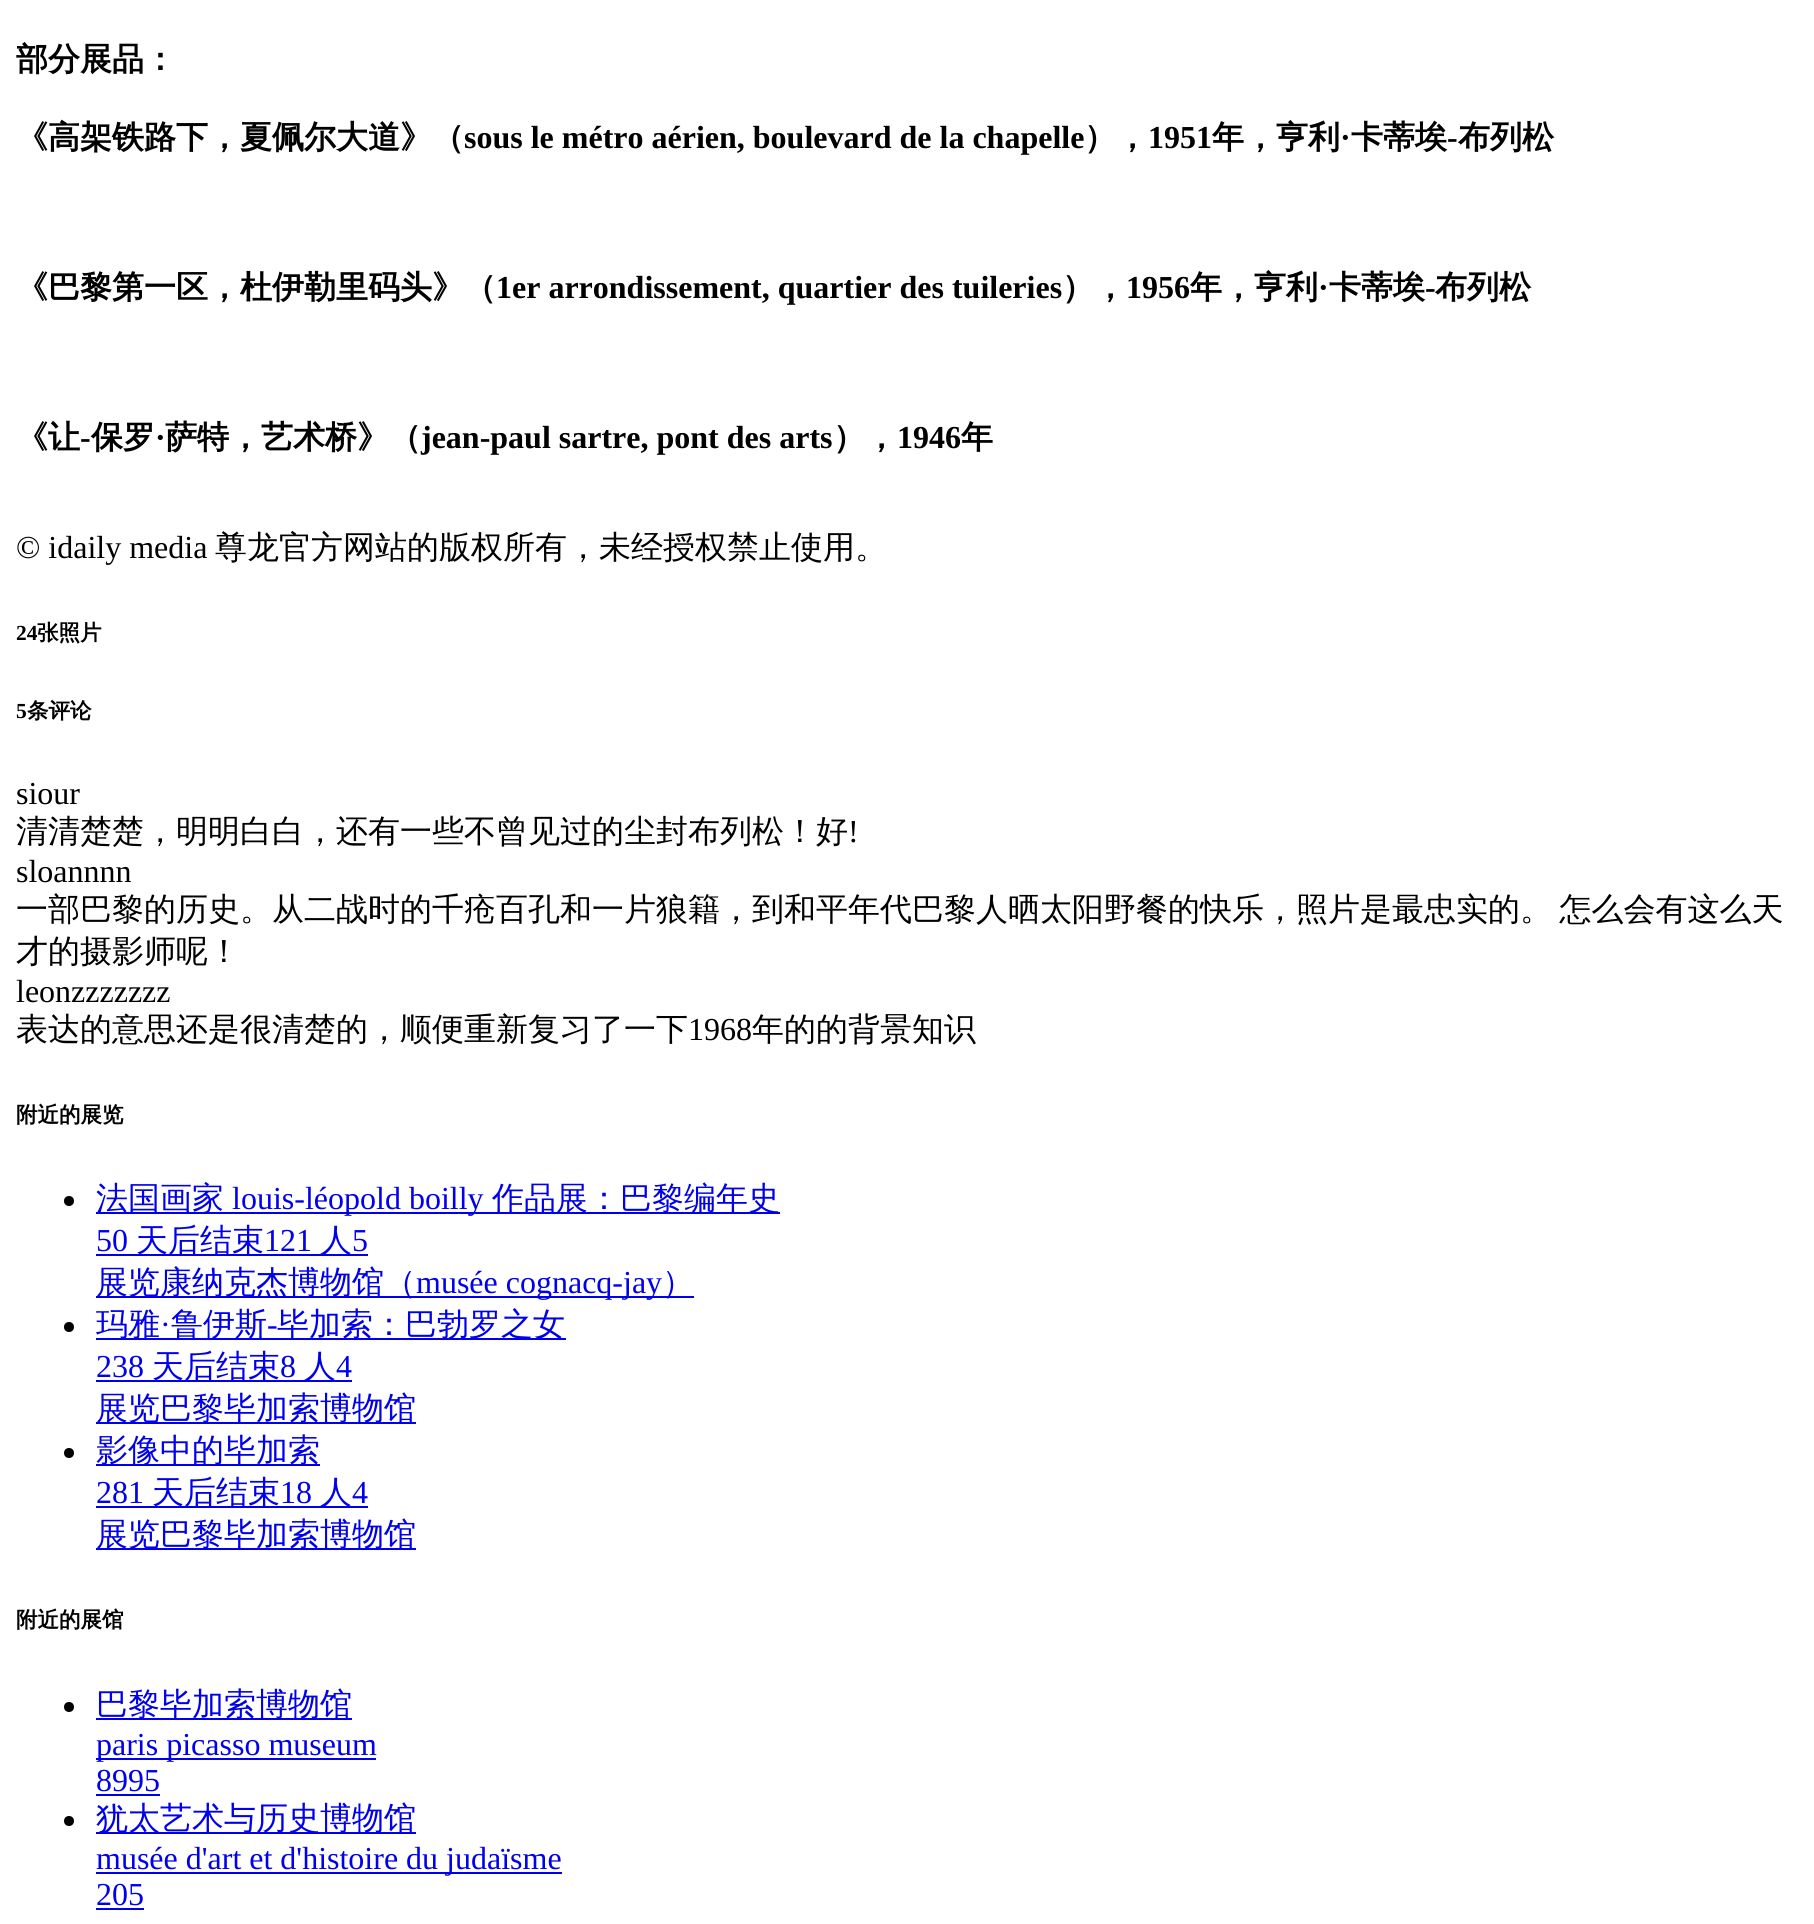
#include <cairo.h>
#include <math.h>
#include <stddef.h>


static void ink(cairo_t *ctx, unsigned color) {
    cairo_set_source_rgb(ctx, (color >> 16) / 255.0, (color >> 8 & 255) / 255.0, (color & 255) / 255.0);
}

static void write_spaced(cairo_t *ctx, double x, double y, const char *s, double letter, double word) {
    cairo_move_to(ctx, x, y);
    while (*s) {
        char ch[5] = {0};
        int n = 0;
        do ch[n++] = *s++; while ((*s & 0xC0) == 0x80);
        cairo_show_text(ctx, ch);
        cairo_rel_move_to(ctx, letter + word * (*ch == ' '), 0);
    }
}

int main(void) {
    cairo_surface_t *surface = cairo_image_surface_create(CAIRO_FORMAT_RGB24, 1814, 1924);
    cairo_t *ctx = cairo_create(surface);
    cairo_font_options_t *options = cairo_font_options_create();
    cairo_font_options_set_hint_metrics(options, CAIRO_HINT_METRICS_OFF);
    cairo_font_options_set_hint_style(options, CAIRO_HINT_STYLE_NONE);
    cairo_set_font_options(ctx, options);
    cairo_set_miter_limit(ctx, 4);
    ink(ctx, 0xFFFFFF);
    cairo_paint(ctx);
    cairo_select_font_face(ctx, "WenQuanYi Zen Hei", CAIRO_FONT_SLANT_NORMAL, CAIRO_FONT_WEIGHT_BOLD);
    cairo_set_font_size(ctx, 32);
    ink(ctx, 0x000000);
    cairo_move_to(ctx, 16, 70);
    cairo_show_text(ctx, "部分展品：");
    cairo_move_to(ctx, 16, 148);
    cairo_show_text(ctx, "《高架铁路下，夏佩尔大道》（");
    cairo_select_font_face(ctx, "Liberation Serif", CAIRO_FONT_SLANT_NORMAL, CAIRO_FONT_WEIGHT_BOLD);
    cairo_move_to(ctx, 464, 148);
    cairo_show_text(ctx, "sous le métro aérien, boulevard de la chapelle");
    cairo_select_font_face(ctx, "WenQuanYi Zen Hei", CAIRO_FONT_SLANT_NORMAL, CAIRO_FONT_WEIGHT_BOLD);
    cairo_move_to(ctx, 1084, 148);
    cairo_show_text(ctx, "），");
    cairo_select_font_face(ctx, "Liberation Serif", CAIRO_FONT_SLANT_NORMAL, CAIRO_FONT_WEIGHT_BOLD);
    cairo_move_to(ctx, 1148, 148);
    cairo_show_text(ctx, "1951");
    cairo_select_font_face(ctx, "WenQuanYi Zen Hei", CAIRO_FONT_SLANT_NORMAL, CAIRO_FONT_WEIGHT_BOLD);
    cairo_move_to(ctx, 1212, 148);
    cairo_show_text(ctx, "年，亨利");
    cairo_select_font_face(ctx, "Liberation Serif", CAIRO_FONT_SLANT_NORMAL, CAIRO_FONT_WEIGHT_BOLD);
    cairo_move_to(ctx, 1340, 148);
    cairo_show_text(ctx, "·");
    cairo_select_font_face(ctx, "WenQuanYi Zen Hei", CAIRO_FONT_SLANT_NORMAL, CAIRO_FONT_WEIGHT_BOLD);
    cairo_move_to(ctx, 1351, 148);
    cairo_show_text(ctx, "卡蒂埃");
    cairo_move_to(ctx, 1458, 148);
    cairo_show_text(ctx, "布列松");
    cairo_select_font_face(ctx, "Liberation Serif", CAIRO_FONT_SLANT_NORMAL, CAIRO_FONT_WEIGHT_BOLD);
    cairo_move_to(ctx, 1447, 148);
    cairo_show_text(ctx, "-");
    cairo_select_font_face(ctx, "WenQuanYi Zen Hei", CAIRO_FONT_SLANT_NORMAL, CAIRO_FONT_WEIGHT_BOLD);
    cairo_move_to(ctx, 16, 298);
    cairo_show_text(ctx, "《巴黎第一区，杜伊勒里码头》（");
    cairo_select_font_face(ctx, "Liberation Serif", CAIRO_FONT_SLANT_NORMAL, CAIRO_FONT_WEIGHT_BOLD);
    cairo_move_to(ctx, 496, 298);
    cairo_show_text(ctx, "1er arrondissement, quartier des tuileries");
    cairo_select_font_face(ctx, "WenQuanYi Zen Hei", CAIRO_FONT_SLANT_NORMAL, CAIRO_FONT_WEIGHT_BOLD);
    cairo_move_to(ctx, 1062, 298);
    cairo_show_text(ctx, "），");
    cairo_select_font_face(ctx, "Liberation Serif", CAIRO_FONT_SLANT_NORMAL, CAIRO_FONT_WEIGHT_BOLD);
    cairo_move_to(ctx, 1126, 298);
    cairo_show_text(ctx, "1956");
    cairo_select_font_face(ctx, "WenQuanYi Zen Hei", CAIRO_FONT_SLANT_NORMAL, CAIRO_FONT_WEIGHT_BOLD);
    cairo_move_to(ctx, 1190, 298);
    cairo_show_text(ctx, "年，亨利");
    cairo_select_font_face(ctx, "Liberation Serif", CAIRO_FONT_SLANT_NORMAL, CAIRO_FONT_WEIGHT_BOLD);
    cairo_move_to(ctx, 1318, 298);
    cairo_show_text(ctx, "·");
    cairo_select_font_face(ctx, "WenQuanYi Zen Hei", CAIRO_FONT_SLANT_NORMAL, CAIRO_FONT_WEIGHT_BOLD);
    cairo_move_to(ctx, 1329, 298);
    cairo_show_text(ctx, "卡蒂埃");
    cairo_move_to(ctx, 1435, 298);
    cairo_show_text(ctx, "布列松");
    cairo_select_font_face(ctx, "Liberation Serif", CAIRO_FONT_SLANT_NORMAL, CAIRO_FONT_WEIGHT_BOLD);
    cairo_move_to(ctx, 1425, 298);
    cairo_show_text(ctx, "-");
    cairo_select_font_face(ctx, "WenQuanYi Zen Hei", CAIRO_FONT_SLANT_NORMAL, CAIRO_FONT_WEIGHT_BOLD);
    cairo_move_to(ctx, 16, 448);
    cairo_show_text(ctx, "《让");
    cairo_move_to(ctx, 91, 448);
    cairo_show_text(ctx, "保罗");
    cairo_select_font_face(ctx, "Liberation Serif", CAIRO_FONT_SLANT_NORMAL, CAIRO_FONT_WEIGHT_BOLD);
    cairo_move_to(ctx, 155, 448);
    cairo_show_text(ctx, "·");
    cairo_select_font_face(ctx, "WenQuanYi Zen Hei", CAIRO_FONT_SLANT_NORMAL, CAIRO_FONT_WEIGHT_BOLD);
    cairo_move_to(ctx, 165, 448);
    cairo_show_text(ctx, "萨特，艺术桥》（");
    cairo_select_font_face(ctx, "Liberation Serif", CAIRO_FONT_SLANT_NORMAL, CAIRO_FONT_WEIGHT_BOLD);
    cairo_move_to(ctx, 421, 448);
    cairo_show_text(ctx, "jean-paul sartre, pont des arts");
    cairo_select_font_face(ctx, "WenQuanYi Zen Hei", CAIRO_FONT_SLANT_NORMAL, CAIRO_FONT_WEIGHT_BOLD);
    cairo_move_to(ctx, 833, 448);
    cairo_show_text(ctx, "），");
    cairo_select_font_face(ctx, "Liberation Serif", CAIRO_FONT_SLANT_NORMAL, CAIRO_FONT_WEIGHT_BOLD);
    cairo_move_to(ctx, 897, 448);
    cairo_show_text(ctx, "1946");
    cairo_select_font_face(ctx, "WenQuanYi Zen Hei", CAIRO_FONT_SLANT_NORMAL, CAIRO_FONT_WEIGHT_BOLD);
    cairo_move_to(ctx, 961, 448);
    cairo_show_text(ctx, "年");
    cairo_select_font_face(ctx, "Liberation Serif", CAIRO_FONT_SLANT_NORMAL, CAIRO_FONT_WEIGHT_BOLD);
    cairo_move_to(ctx, 80, 448);
    cairo_show_text(ctx, "-");
    cairo_select_font_face(ctx, "Liberation Serif", CAIRO_FONT_SLANT_NORMAL, CAIRO_FONT_WEIGHT_NORMAL);
    cairo_move_to(ctx, 16, 558);
    cairo_show_text(ctx, "© idaily media");
    cairo_select_font_face(ctx, "WenQuanYi Zen Hei Medium", CAIRO_FONT_SLANT_NORMAL, CAIRO_FONT_WEIGHT_NORMAL);
    cairo_move_to(ctx, 215, 558);
    cairo_show_text(ctx, "尊龙官方网站的版权所有，未经授权禁止使用。");
    cairo_select_font_face(ctx, "Liberation Serif", CAIRO_FONT_SLANT_NORMAL, CAIRO_FONT_WEIGHT_BOLD);
    cairo_set_font_size(ctx, 21.5);
    cairo_move_to(ctx, 16, 640);
    cairo_show_text(ctx, "24");
    cairo_select_font_face(ctx, "WenQuanYi Zen Hei", CAIRO_FONT_SLANT_NORMAL, CAIRO_FONT_WEIGHT_BOLD);
    cairo_move_to(ctx, 37, 640);
    cairo_show_text(ctx, "张照片");
    cairo_select_font_face(ctx, "Liberation Serif", CAIRO_FONT_SLANT_NORMAL, CAIRO_FONT_WEIGHT_BOLD);
    cairo_move_to(ctx, 16, 718);
    cairo_show_text(ctx, "5");
    cairo_select_font_face(ctx, "WenQuanYi Zen Hei", CAIRO_FONT_SLANT_NORMAL, CAIRO_FONT_WEIGHT_BOLD);
    cairo_move_to(ctx, 27, 718);
    cairo_show_text(ctx, "条评论");
    cairo_select_font_face(ctx, "Liberation Serif", CAIRO_FONT_SLANT_NORMAL, CAIRO_FONT_WEIGHT_NORMAL);
    cairo_set_font_size(ctx, 32);
    cairo_move_to(ctx, 16, 804);
    cairo_show_text(ctx, "siour");
    cairo_select_font_face(ctx, "WenQuanYi Zen Hei Medium", CAIRO_FONT_SLANT_NORMAL, CAIRO_FONT_WEIGHT_NORMAL);
    cairo_move_to(ctx, 16, 842);
    cairo_show_text(ctx, "清清楚楚，明明白白，还有一些不曾见过的尘封布列松！好");
    cairo_select_font_face(ctx, "Liberation Serif", CAIRO_FONT_SLANT_NORMAL, CAIRO_FONT_WEIGHT_NORMAL);
    cairo_move_to(ctx, 848, 842);
    cairo_show_text(ctx, "!");
    cairo_move_to(ctx, 16, 882);
    cairo_show_text(ctx, "sloannnn");
    cairo_select_font_face(ctx, "WenQuanYi Zen Hei Medium", CAIRO_FONT_SLANT_NORMAL, CAIRO_FONT_WEIGHT_NORMAL);
    write_spaced(ctx, 16, 920, "一部巴黎的历史。从二战时的千疮百孔和一片狼籍，到和平年代巴黎人晒太阳野餐的快乐，照片是最忠实的。 怎么会有这么天", 0, -2);
    cairo_move_to(ctx, 16, 962);
    cairo_show_text(ctx, "才的摄影师呢！");
    cairo_select_font_face(ctx, "Liberation Serif", CAIRO_FONT_SLANT_NORMAL, CAIRO_FONT_WEIGHT_NORMAL);
    cairo_move_to(ctx, 16, 1002);
    cairo_show_text(ctx, "leonzzzzzzz");
    cairo_select_font_face(ctx, "WenQuanYi Zen Hei Medium", CAIRO_FONT_SLANT_NORMAL, CAIRO_FONT_WEIGHT_NORMAL);
    cairo_move_to(ctx, 16, 1040);
    cairo_show_text(ctx, "表达的意思还是很清楚的，顺便重新复习了一下");
    cairo_select_font_face(ctx, "Liberation Serif", CAIRO_FONT_SLANT_NORMAL, CAIRO_FONT_WEIGHT_NORMAL);
    cairo_move_to(ctx, 688, 1040);
    cairo_show_text(ctx, "1968");
    cairo_select_font_face(ctx, "WenQuanYi Zen Hei Medium", CAIRO_FONT_SLANT_NORMAL, CAIRO_FONT_WEIGHT_NORMAL);
    cairo_move_to(ctx, 752, 1040);
    cairo_show_text(ctx, "年的的背景知识");
    cairo_select_font_face(ctx, "WenQuanYi Zen Hei", CAIRO_FONT_SLANT_NORMAL, CAIRO_FONT_WEIGHT_BOLD);
    cairo_set_font_size(ctx, 21.5);
    cairo_move_to(ctx, 16, 1122);
    cairo_show_text(ctx, "附近的展览");
    cairo_new_path(ctx);
    cairo_arc(ctx, 69, 1201, 5, 0, 2 * M_PI);
    cairo_fill(ctx);
    ink(ctx, 0x0000EE);
    cairo_rectangle(ctx, 96, 1212, 684, 2);
    cairo_fill(ctx);
    cairo_select_font_face(ctx, "WenQuanYi Zen Hei Medium", CAIRO_FONT_SLANT_NORMAL, CAIRO_FONT_WEIGHT_NORMAL);
    cairo_set_font_size(ctx, 32);
    cairo_move_to(ctx, 96, 1209);
    cairo_show_text(ctx, "法国画家");
    cairo_select_font_face(ctx, "Liberation Serif", CAIRO_FONT_SLANT_NORMAL, CAIRO_FONT_WEIGHT_NORMAL);
    cairo_move_to(ctx, 232, 1209);
    cairo_show_text(ctx, "louis-léopold boilly");
    cairo_select_font_face(ctx, "WenQuanYi Zen Hei Medium", CAIRO_FONT_SLANT_NORMAL, CAIRO_FONT_WEIGHT_NORMAL);
    cairo_move_to(ctx, 492, 1209);
    cairo_show_text(ctx, "作品展：巴黎编年史");
    cairo_select_font_face(ctx, "Liberation Serif", CAIRO_FONT_SLANT_NORMAL, CAIRO_FONT_WEIGHT_NORMAL);
    cairo_move_to(ctx, 96, 1251);
    cairo_show_text(ctx, "50");
    cairo_rectangle(ctx, 96, 1254, 272, 2);
    cairo_fill(ctx);
    cairo_select_font_face(ctx, "WenQuanYi Zen Hei Medium", CAIRO_FONT_SLANT_NORMAL, CAIRO_FONT_WEIGHT_NORMAL);
    cairo_move_to(ctx, 136, 1251);
    cairo_show_text(ctx, "天后结束");
    cairo_select_font_face(ctx, "Liberation Serif", CAIRO_FONT_SLANT_NORMAL, CAIRO_FONT_WEIGHT_NORMAL);
    cairo_move_to(ctx, 264, 1251);
    cairo_show_text(ctx, "121");
    cairo_select_font_face(ctx, "WenQuanYi Zen Hei Medium", CAIRO_FONT_SLANT_NORMAL, CAIRO_FONT_WEIGHT_NORMAL);
    cairo_move_to(ctx, 320, 1251);
    cairo_show_text(ctx, "人");
    cairo_select_font_face(ctx, "Liberation Serif", CAIRO_FONT_SLANT_NORMAL, CAIRO_FONT_WEIGHT_NORMAL);
    cairo_move_to(ctx, 352, 1251);
    cairo_show_text(ctx, "5");
    cairo_rectangle(ctx, 96, 1296, 598, 2);
    cairo_fill(ctx);
    cairo_select_font_face(ctx, "WenQuanYi Zen Hei Medium", CAIRO_FONT_SLANT_NORMAL, CAIRO_FONT_WEIGHT_NORMAL);
    cairo_move_to(ctx, 96, 1293);
    cairo_show_text(ctx, "展览康纳克杰博物馆（");
    cairo_select_font_face(ctx, "Liberation Serif", CAIRO_FONT_SLANT_NORMAL, CAIRO_FONT_WEIGHT_NORMAL);
    cairo_move_to(ctx, 416, 1293);
    cairo_show_text(ctx, "musée cognacq-jay");
    cairo_select_font_face(ctx, "WenQuanYi Zen Hei Medium", CAIRO_FONT_SLANT_NORMAL, CAIRO_FONT_WEIGHT_NORMAL);
    cairo_move_to(ctx, 662, 1293);
    cairo_show_text(ctx, "）");
    ink(ctx, 0x000000);
    cairo_new_path(ctx);
    cairo_arc(ctx, 69, 1327, 5, 0, 2 * M_PI);
    cairo_fill(ctx);
    ink(ctx, 0x0000EE);
    cairo_rectangle(ctx, 96, 1338, 470, 2);
    cairo_fill(ctx);
    cairo_move_to(ctx, 96, 1335);
    cairo_show_text(ctx, "玛雅");
    cairo_select_font_face(ctx, "Liberation Serif", CAIRO_FONT_SLANT_NORMAL, CAIRO_FONT_WEIGHT_NORMAL);
    cairo_move_to(ctx, 160, 1335);
    cairo_show_text(ctx, "·");
    cairo_select_font_face(ctx, "WenQuanYi Zen Hei Medium", CAIRO_FONT_SLANT_NORMAL, CAIRO_FONT_WEIGHT_NORMAL);
    cairo_move_to(ctx, 171, 1335);
    cairo_show_text(ctx, "鲁伊斯");
    cairo_move_to(ctx, 277, 1335);
    cairo_show_text(ctx, "毕加索：巴勃罗之女");
    cairo_select_font_face(ctx, "Liberation Serif", CAIRO_FONT_SLANT_NORMAL, CAIRO_FONT_WEIGHT_NORMAL);
    cairo_move_to(ctx, 267, 1335);
    cairo_show_text(ctx, "-");
    cairo_move_to(ctx, 96, 1377);
    cairo_show_text(ctx, "238");
    cairo_rectangle(ctx, 96, 1380, 256, 2);
    cairo_fill(ctx);
    cairo_select_font_face(ctx, "WenQuanYi Zen Hei Medium", CAIRO_FONT_SLANT_NORMAL, CAIRO_FONT_WEIGHT_NORMAL);
    cairo_move_to(ctx, 152, 1377);
    cairo_show_text(ctx, "天后结束");
    cairo_select_font_face(ctx, "Liberation Serif", CAIRO_FONT_SLANT_NORMAL, CAIRO_FONT_WEIGHT_NORMAL);
    cairo_move_to(ctx, 280, 1377);
    cairo_show_text(ctx, "8");
    cairo_select_font_face(ctx, "WenQuanYi Zen Hei Medium", CAIRO_FONT_SLANT_NORMAL, CAIRO_FONT_WEIGHT_NORMAL);
    cairo_move_to(ctx, 304, 1377);
    cairo_show_text(ctx, "人");
    cairo_select_font_face(ctx, "Liberation Serif", CAIRO_FONT_SLANT_NORMAL, CAIRO_FONT_WEIGHT_NORMAL);
    cairo_move_to(ctx, 336, 1377);
    cairo_show_text(ctx, "4");
    cairo_rectangle(ctx, 96, 1422, 320, 2);
    cairo_fill(ctx);
    cairo_select_font_face(ctx, "WenQuanYi Zen Hei Medium", CAIRO_FONT_SLANT_NORMAL, CAIRO_FONT_WEIGHT_NORMAL);
    cairo_move_to(ctx, 96, 1419);
    cairo_show_text(ctx, "展览巴黎毕加索博物馆");
    ink(ctx, 0x000000);
    cairo_new_path(ctx);
    cairo_arc(ctx, 69, 1453, 5, 0, 2 * M_PI);
    cairo_fill(ctx);
    ink(ctx, 0x0000EE);
    cairo_rectangle(ctx, 96, 1464, 224, 2);
    cairo_fill(ctx);
    cairo_move_to(ctx, 96, 1461);
    cairo_show_text(ctx, "影像中的毕加索");
    cairo_select_font_face(ctx, "Liberation Serif", CAIRO_FONT_SLANT_NORMAL, CAIRO_FONT_WEIGHT_NORMAL);
    cairo_move_to(ctx, 96, 1503);
    cairo_show_text(ctx, "281");
    cairo_rectangle(ctx, 96, 1506, 272, 2);
    cairo_fill(ctx);
    cairo_select_font_face(ctx, "WenQuanYi Zen Hei Medium", CAIRO_FONT_SLANT_NORMAL, CAIRO_FONT_WEIGHT_NORMAL);
    cairo_move_to(ctx, 152, 1503);
    cairo_show_text(ctx, "天后结束");
    cairo_select_font_face(ctx, "Liberation Serif", CAIRO_FONT_SLANT_NORMAL, CAIRO_FONT_WEIGHT_NORMAL);
    cairo_move_to(ctx, 280, 1503);
    cairo_show_text(ctx, "18");
    cairo_select_font_face(ctx, "WenQuanYi Zen Hei Medium", CAIRO_FONT_SLANT_NORMAL, CAIRO_FONT_WEIGHT_NORMAL);
    cairo_move_to(ctx, 320, 1503);
    cairo_show_text(ctx, "人");
    cairo_select_font_face(ctx, "Liberation Serif", CAIRO_FONT_SLANT_NORMAL, CAIRO_FONT_WEIGHT_NORMAL);
    cairo_move_to(ctx, 352, 1503);
    cairo_show_text(ctx, "4");
    cairo_rectangle(ctx, 96, 1548, 320, 2);
    cairo_fill(ctx);
    cairo_select_font_face(ctx, "WenQuanYi Zen Hei Medium", CAIRO_FONT_SLANT_NORMAL, CAIRO_FONT_WEIGHT_NORMAL);
    cairo_move_to(ctx, 96, 1545);
    cairo_show_text(ctx, "展览巴黎毕加索博物馆");
    cairo_select_font_face(ctx, "WenQuanYi Zen Hei", CAIRO_FONT_SLANT_NORMAL, CAIRO_FONT_WEIGHT_BOLD);
    cairo_set_font_size(ctx, 21.5);
    ink(ctx, 0x000000);
    cairo_move_to(ctx, 16, 1627);
    cairo_show_text(ctx, "附近的展馆");
    cairo_new_path(ctx);
    cairo_arc(ctx, 69, 1707, 5, 0, 2 * M_PI);
    cairo_fill(ctx);
    ink(ctx, 0x0000EE);
    cairo_rectangle(ctx, 96, 1718, 256, 2);
    cairo_fill(ctx);
    cairo_select_font_face(ctx, "WenQuanYi Zen Hei Medium", CAIRO_FONT_SLANT_NORMAL, CAIRO_FONT_WEIGHT_NORMAL);
    cairo_set_font_size(ctx, 32);
    cairo_move_to(ctx, 96, 1715);
    cairo_show_text(ctx, "巴黎毕加索博物馆");
    cairo_rectangle(ctx, 96, 1758, 280, 2);
    cairo_fill(ctx);
    cairo_select_font_face(ctx, "Liberation Serif", CAIRO_FONT_SLANT_NORMAL, CAIRO_FONT_WEIGHT_NORMAL);
    cairo_move_to(ctx, 96, 1755);
    cairo_show_text(ctx, "paris picasso museum");
    cairo_move_to(ctx, 96, 1791);
    cairo_show_text(ctx, "8995");
    cairo_rectangle(ctx, 96, 1794, 64, 2);
    cairo_fill(ctx);
    ink(ctx, 0x000000);
    cairo_arc(ctx, 69, 1821, 5, 0, 2 * M_PI);
    cairo_fill(ctx);
    ink(ctx, 0x0000EE);
    cairo_rectangle(ctx, 96, 1832, 320, 2);
    cairo_fill(ctx);
    cairo_select_font_face(ctx, "WenQuanYi Zen Hei Medium", CAIRO_FONT_SLANT_NORMAL, CAIRO_FONT_WEIGHT_NORMAL);
    cairo_move_to(ctx, 96, 1829);
    cairo_show_text(ctx, "犹太艺术与历史博物馆");
    cairo_rectangle(ctx, 96, 1872, 466, 2);
    cairo_fill(ctx);
    cairo_select_font_face(ctx, "Liberation Serif", CAIRO_FONT_SLANT_NORMAL, CAIRO_FONT_WEIGHT_NORMAL);
    cairo_move_to(ctx, 96, 1869);
    cairo_show_text(ctx, "musée d'art et d'histoire du judaïsme");
    cairo_move_to(ctx, 96, 1905);
    cairo_show_text(ctx, "205");
    cairo_rectangle(ctx, 96, 1908, 48, 2);
    cairo_fill(ctx);
    cairo_surface_write_to_png(surface, "image.png");
    cairo_font_options_destroy(options);
    cairo_destroy(ctx);
    cairo_surface_destroy(surface);
    return 0;
}
